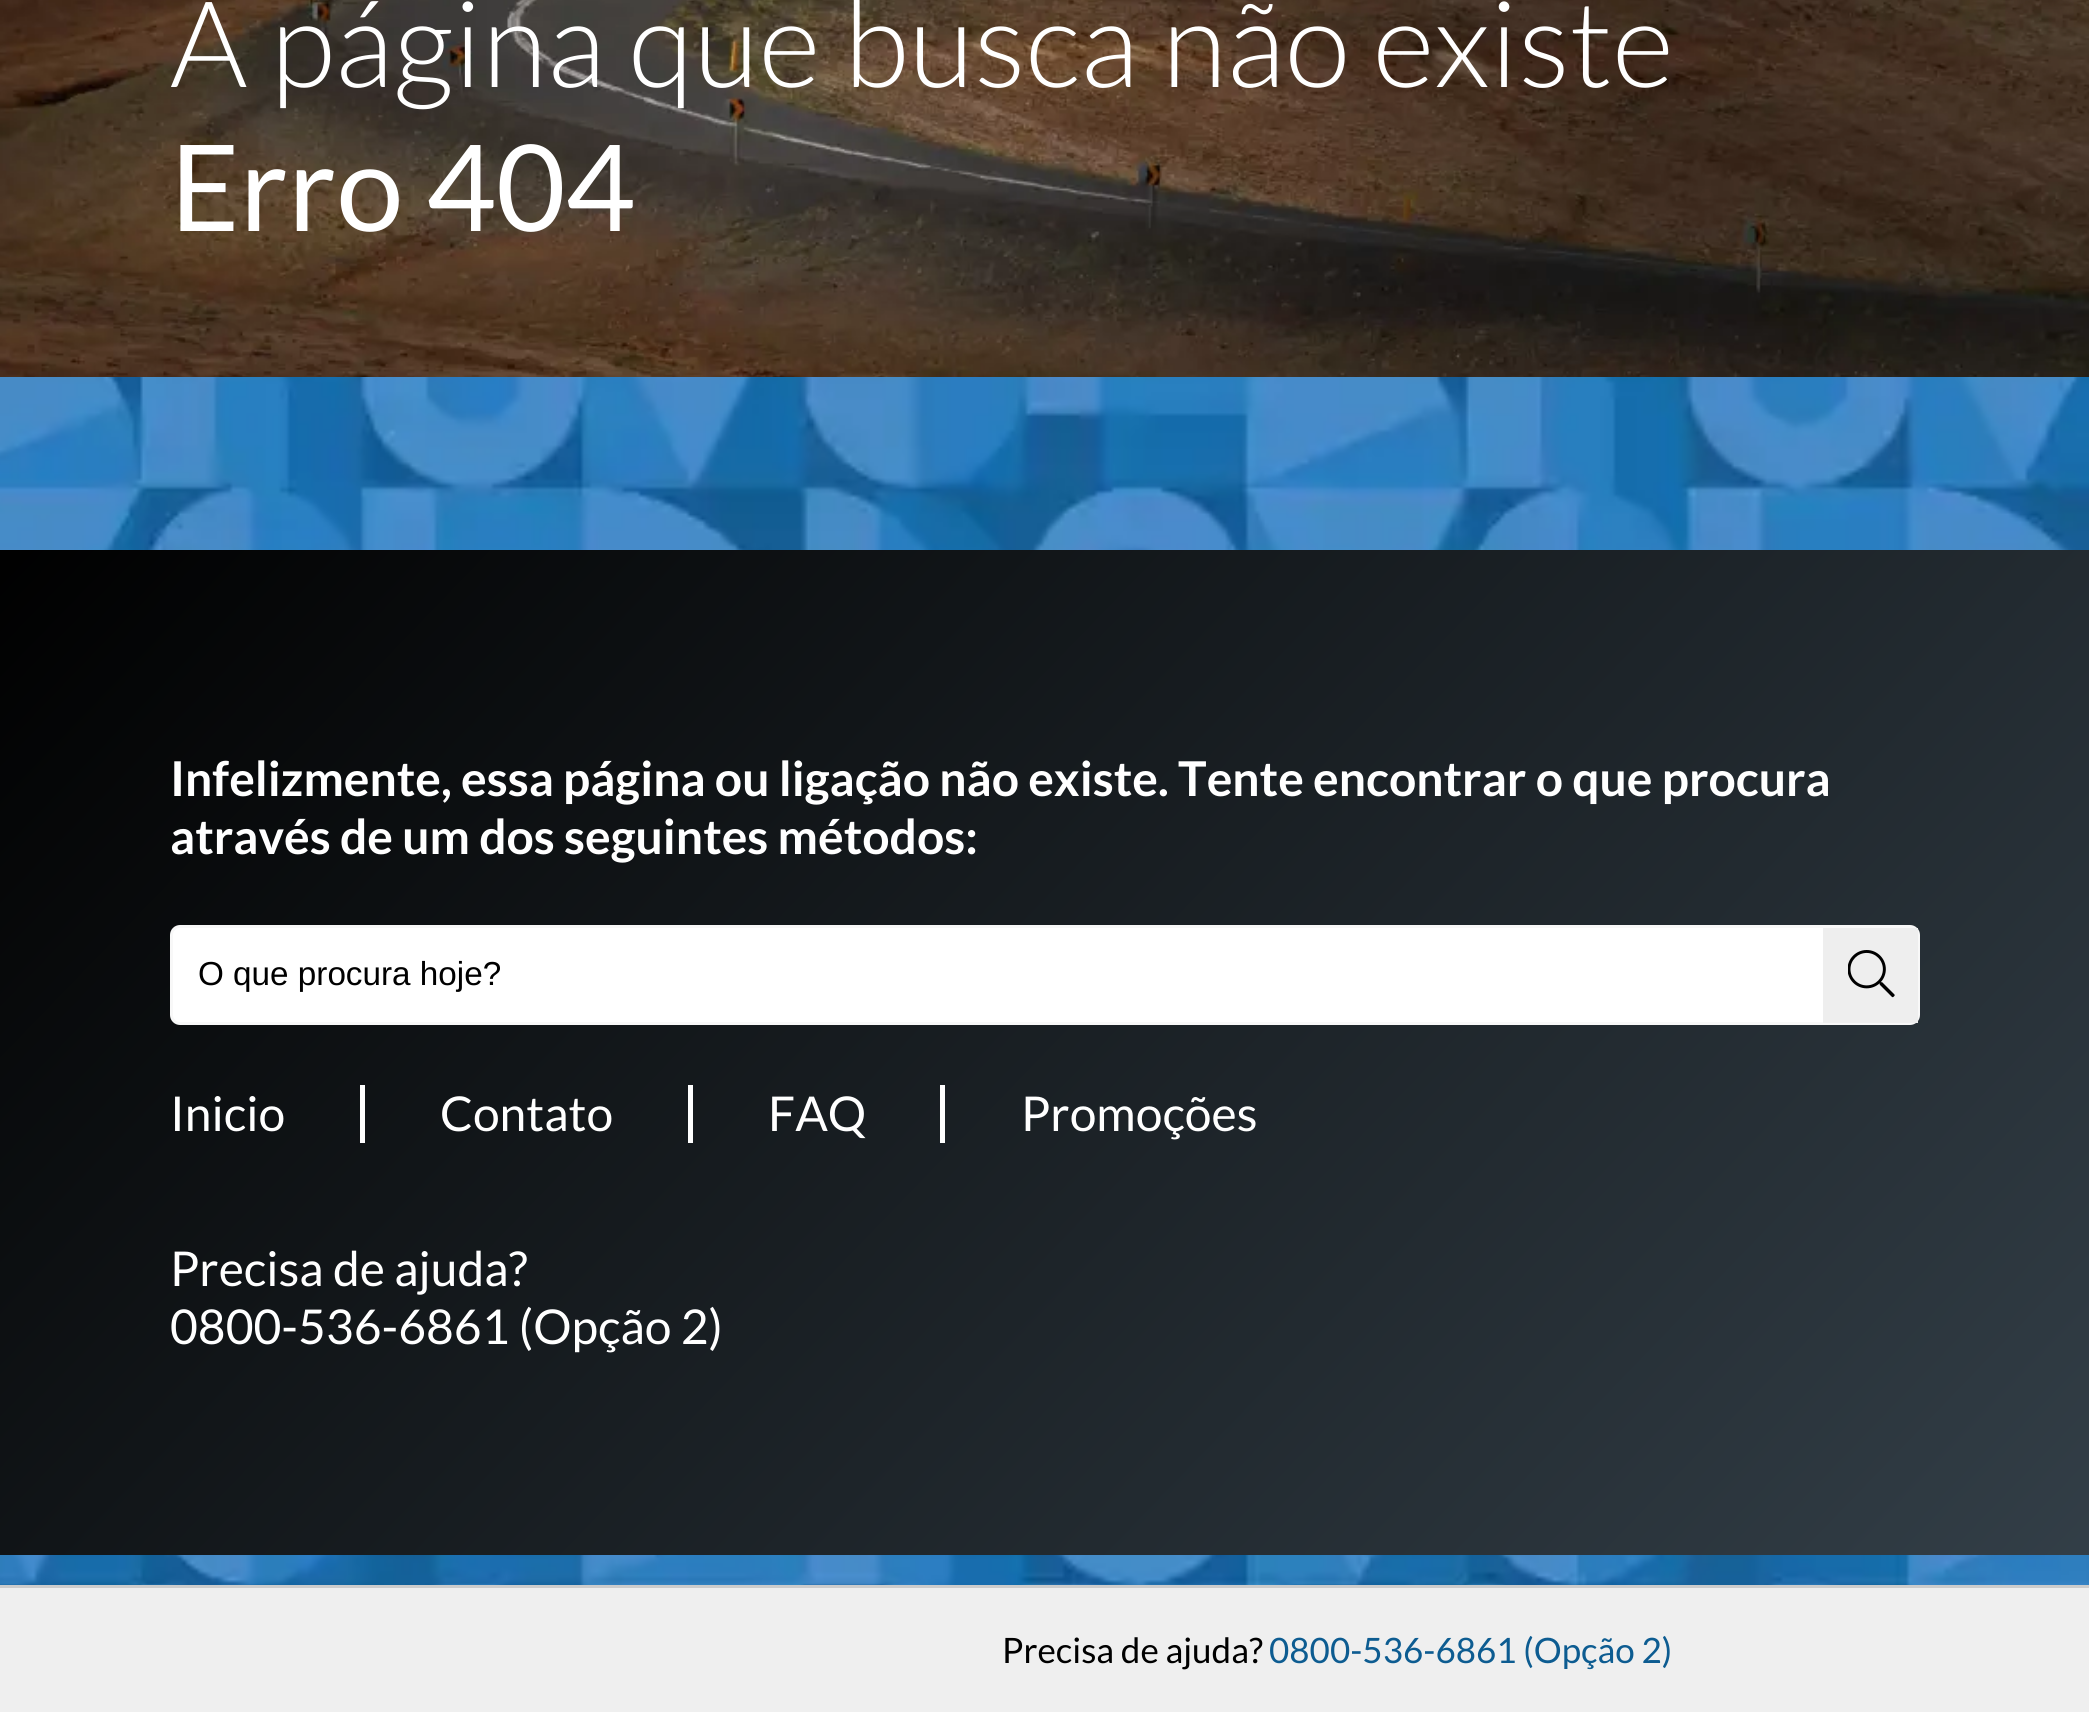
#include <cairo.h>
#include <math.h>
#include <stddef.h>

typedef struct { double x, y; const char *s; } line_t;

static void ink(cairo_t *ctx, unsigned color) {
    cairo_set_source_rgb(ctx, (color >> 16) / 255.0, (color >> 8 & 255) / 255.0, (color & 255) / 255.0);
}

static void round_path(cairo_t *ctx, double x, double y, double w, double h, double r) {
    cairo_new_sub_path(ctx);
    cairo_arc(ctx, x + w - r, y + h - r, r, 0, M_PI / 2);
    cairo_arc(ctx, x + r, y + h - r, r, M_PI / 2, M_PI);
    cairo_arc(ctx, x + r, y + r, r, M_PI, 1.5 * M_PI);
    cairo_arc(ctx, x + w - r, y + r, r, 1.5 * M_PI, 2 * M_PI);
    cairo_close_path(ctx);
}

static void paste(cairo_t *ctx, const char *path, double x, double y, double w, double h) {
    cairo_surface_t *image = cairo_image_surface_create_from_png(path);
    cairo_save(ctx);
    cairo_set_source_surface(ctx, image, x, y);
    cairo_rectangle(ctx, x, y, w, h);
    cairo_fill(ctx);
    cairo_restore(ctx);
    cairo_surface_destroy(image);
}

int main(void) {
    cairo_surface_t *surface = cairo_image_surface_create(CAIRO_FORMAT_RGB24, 2089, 1712);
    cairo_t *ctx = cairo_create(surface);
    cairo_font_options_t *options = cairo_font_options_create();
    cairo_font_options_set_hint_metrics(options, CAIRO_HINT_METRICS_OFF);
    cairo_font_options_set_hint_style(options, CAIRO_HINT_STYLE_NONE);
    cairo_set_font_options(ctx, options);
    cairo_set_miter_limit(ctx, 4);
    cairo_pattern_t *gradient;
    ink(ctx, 0xFFFFFF);
    cairo_paint(ctx);
    paste(ctx, "media/1.png", 0, 0, 2089, 377);
    cairo_select_font_face(ctx, "Lato Light", CAIRO_FONT_SLANT_NORMAL, CAIRO_FONT_WEIGHT_NORMAL);
    cairo_set_font_size(ctx, 120);
    ink(ctx, 0xFFFFFF);
    cairo_move_to(ctx, 170, 87);
    cairo_show_text(ctx, "A página que busca não existe");
    cairo_select_font_face(ctx, "Lato", CAIRO_FONT_SLANT_NORMAL, CAIRO_FONT_WEIGHT_NORMAL);
    cairo_move_to(ctx, 170, 231);
    cairo_show_text(ctx, "Erro 404");
    paste(ctx, "media/2.png", 0, 377, 2089, 1208);
    gradient = cairo_pattern_create_linear(238, 273, 1852, 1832);
    cairo_pattern_add_color_stop_rgba(gradient, 0, 0, 0, 0, 1);
    cairo_pattern_add_color_stop_rgba(gradient, 1, 0.2, 0.247, 0.282, 1);
    cairo_set_source(ctx, gradient);
    cairo_pattern_destroy(gradient);
    cairo_rectangle(ctx, 0, 550, 2089, 1005);
    cairo_fill(ctx);
    cairo_select_font_face(ctx, "Lato", CAIRO_FONT_SLANT_NORMAL, CAIRO_FONT_WEIGHT_BOLD);
    cairo_set_font_size(ctx, 48);
    ink(ctx, 0xFFFFFF);
    cairo_move_to(ctx, 170, 796);
    cairo_show_text(ctx, "Infelizmente, essa página ou ligação não existe. Tente encontrar o que procura");
    cairo_move_to(ctx, 170, 854);
    cairo_show_text(ctx, "através de um dos seguintes métodos:");
    round_path(ctx, 171.5, 926.5, 1747, 97, 8.5);
    cairo_fill_preserve(ctx);
    ink(ctx, 0xF8F8F8);
    cairo_set_line_width(ctx, 3);
    cairo_stroke(ctx);
    cairo_select_font_face(ctx, "Liberation Sans", CAIRO_FONT_SLANT_NORMAL, CAIRO_FONT_WEIGHT_NORMAL);
    cairo_set_font_size(ctx, 33.25);
    ink(ctx, 0x000000);
    cairo_move_to(ctx, 198, 985);
    cairo_show_text(ctx, "O que procura hoje?");
    ink(ctx, 0xEEEEEE);
    cairo_rectangle(ctx, 1823, 928, 95, 95);
    cairo_fill(ctx);
    paste(ctx, "media/3.png", 1848, 950, 47, 48);
    ink(ctx, 0xFFFFFF);
    cairo_rectangle(ctx, 360, 1085, 5, 58);
    cairo_fill(ctx);
    cairo_select_font_face(ctx, "Lato", CAIRO_FONT_SLANT_NORMAL, CAIRO_FONT_WEIGHT_NORMAL);
    cairo_set_font_size(ctx, 48);
    cairo_move_to(ctx, 170, 1131);
    cairo_show_text(ctx, "Inicio");
    cairo_rectangle(ctx, 688, 1085, 5, 58);
    cairo_fill(ctx);
    cairo_move_to(ctx, 440, 1131);
    cairo_show_text(ctx, "Contato");
    cairo_rectangle(ctx, 940, 1085, 5, 58);
    cairo_fill(ctx);
    {
        static const line_t items[] = {
            {768, 1131, "FAQ"},
            {1021, 1131, "Promoções"},
            {170, 1286, "Precisa de ajuda?"},
            {170, 1344, "0800-536-6861 (Opção 2)"},
        };
        for (size_t i = 0; i < sizeof items / sizeof *items; i++) {
            cairo_move_to(ctx, items[i].x, items[i].y);
            cairo_show_text(ctx, items[i].s);
        }
    }
    ink(ctx, 0xEFEFEF);
    cairo_rectangle(ctx, 0, 1588, 2089, 124);
    cairo_fill(ctx);
    ink(ctx, 0xCCCCCC);
    cairo_rectangle(ctx, 0, 1585, 2089, 3);
    cairo_fill(ctx);
    cairo_set_font_size(ctx, 35);
    ink(ctx, 0x000000);
    cairo_move_to(ctx, 1002, 1663);
    cairo_show_text(ctx, "Precisa de ajuda?");
    ink(ctx, 0x0D5C91);
    cairo_move_to(ctx, 1269, 1663);
    cairo_show_text(ctx, "0800-536-6861 (Opção 2)");
    cairo_surface_write_to_png(surface, "image.png");
    cairo_font_options_destroy(options);
    cairo_destroy(ctx);
    cairo_surface_destroy(surface);
    return 0;
}
